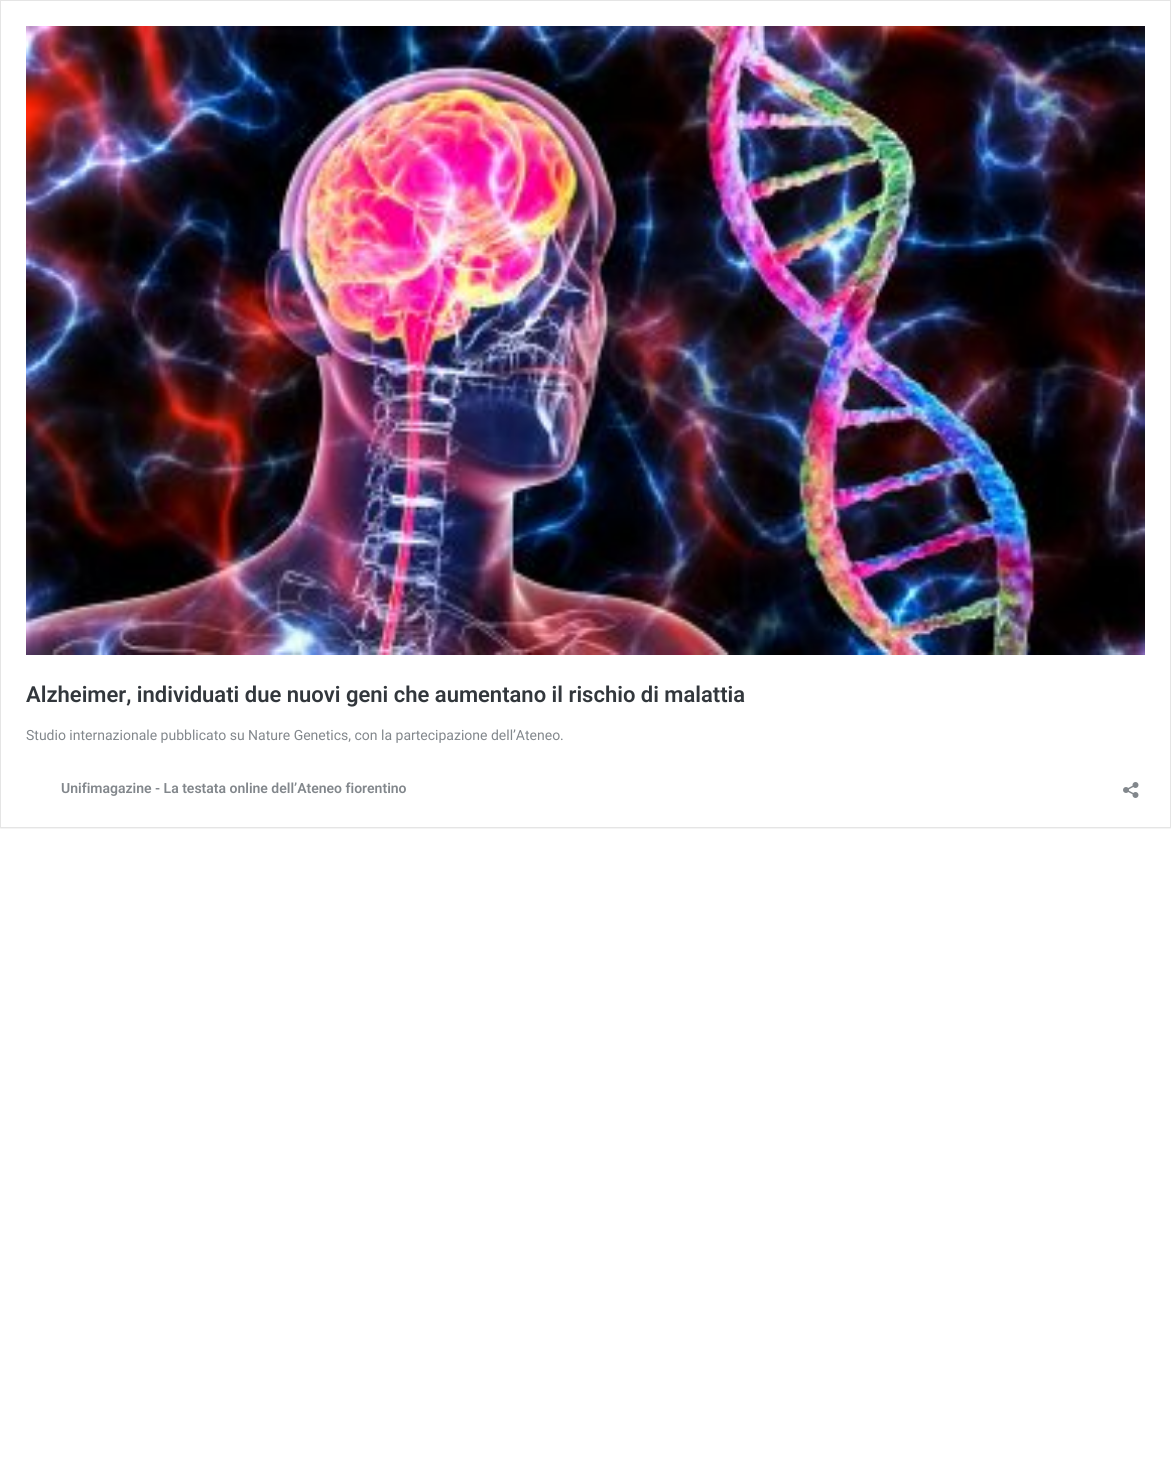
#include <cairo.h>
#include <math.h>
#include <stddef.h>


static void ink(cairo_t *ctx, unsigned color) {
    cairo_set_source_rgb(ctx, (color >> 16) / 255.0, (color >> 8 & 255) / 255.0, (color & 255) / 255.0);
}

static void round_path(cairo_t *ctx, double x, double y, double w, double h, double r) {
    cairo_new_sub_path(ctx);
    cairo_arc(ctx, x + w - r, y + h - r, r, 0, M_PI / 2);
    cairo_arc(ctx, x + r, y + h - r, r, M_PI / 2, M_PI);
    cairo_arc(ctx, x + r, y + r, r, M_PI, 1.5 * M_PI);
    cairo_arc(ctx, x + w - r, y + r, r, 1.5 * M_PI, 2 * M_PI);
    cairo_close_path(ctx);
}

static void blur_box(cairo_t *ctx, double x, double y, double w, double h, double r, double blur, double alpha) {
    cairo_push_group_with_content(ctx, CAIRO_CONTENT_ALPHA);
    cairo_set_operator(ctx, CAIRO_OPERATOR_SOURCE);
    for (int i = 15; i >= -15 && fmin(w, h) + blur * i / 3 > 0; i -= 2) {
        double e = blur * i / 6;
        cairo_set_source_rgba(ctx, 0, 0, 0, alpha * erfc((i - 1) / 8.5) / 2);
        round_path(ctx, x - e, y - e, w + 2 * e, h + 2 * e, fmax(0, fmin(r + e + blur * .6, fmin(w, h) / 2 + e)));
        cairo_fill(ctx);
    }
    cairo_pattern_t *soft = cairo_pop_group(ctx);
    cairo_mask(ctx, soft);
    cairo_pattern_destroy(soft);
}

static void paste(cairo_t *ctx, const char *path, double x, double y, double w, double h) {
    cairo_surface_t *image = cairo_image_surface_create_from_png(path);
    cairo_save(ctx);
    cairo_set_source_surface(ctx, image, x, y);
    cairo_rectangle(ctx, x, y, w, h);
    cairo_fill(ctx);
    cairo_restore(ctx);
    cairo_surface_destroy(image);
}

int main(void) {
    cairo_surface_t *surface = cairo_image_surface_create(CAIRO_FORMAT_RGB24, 1171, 1462);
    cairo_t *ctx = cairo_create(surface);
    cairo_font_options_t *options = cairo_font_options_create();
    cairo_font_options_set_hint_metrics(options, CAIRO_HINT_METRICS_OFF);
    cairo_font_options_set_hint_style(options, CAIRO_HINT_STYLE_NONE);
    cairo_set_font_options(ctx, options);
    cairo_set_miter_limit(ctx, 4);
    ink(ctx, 0xFFFFFF);
    cairo_paint(ctx);
    cairo_save(ctx);
    cairo_rectangle(ctx, 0, 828, 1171, 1);
    cairo_clip(ctx);
    ink(ctx, 0x000000);
    blur_box(ctx, 0, 1, 1171, 828, 0, 0.5, 0.05);
    cairo_restore(ctx);
    cairo_rectangle(ctx, 0.5, 0.5, 1170, 827);
    ink(ctx, 0xE5E5E5);
    cairo_set_line_width(ctx, 1);
    cairo_stroke(ctx);
    paste(ctx, "media/1.png", 26, 26, 1119, 629);
    cairo_select_font_face(ctx, "Roboto SemiBold", CAIRO_FONT_SLANT_NORMAL, CAIRO_FONT_WEIGHT_NORMAL);
    cairo_set_font_size(ctx, 22);
    ink(ctx, 0x32373C);
    cairo_move_to(ctx, 26, 702);
    cairo_show_text(ctx, "Alzheimer, individuati due nuovi geni che aumentano il rischio di malattia");
    cairo_select_font_face(ctx, "Roboto", CAIRO_FONT_SLANT_NORMAL, CAIRO_FONT_WEIGHT_NORMAL);
    cairo_set_font_size(ctx, 14);
    ink(ctx, 0x82878C);
    cairo_move_to(ctx, 26, 740);
    cairo_show_text(ctx, "Studio internazionale pubblicato su Nature Genetics, con la partecipazione dell’Ateneo.");
    cairo_select_font_face(ctx, "Roboto SemiBold", CAIRO_FONT_SLANT_NORMAL, CAIRO_FONT_WEIGHT_NORMAL);
    cairo_move_to(ctx, 61, 793);
    cairo_show_text(ctx, "Unifimagazine - La testata online dell’Ateneo fiorentino");
    paste(ctx, "media/2.png", 1123, 782, 16, 16);
    cairo_surface_write_to_png(surface, "image.png");
    cairo_font_options_destroy(options);
    cairo_destroy(ctx);
    cairo_surface_destroy(surface);
    return 0;
}
